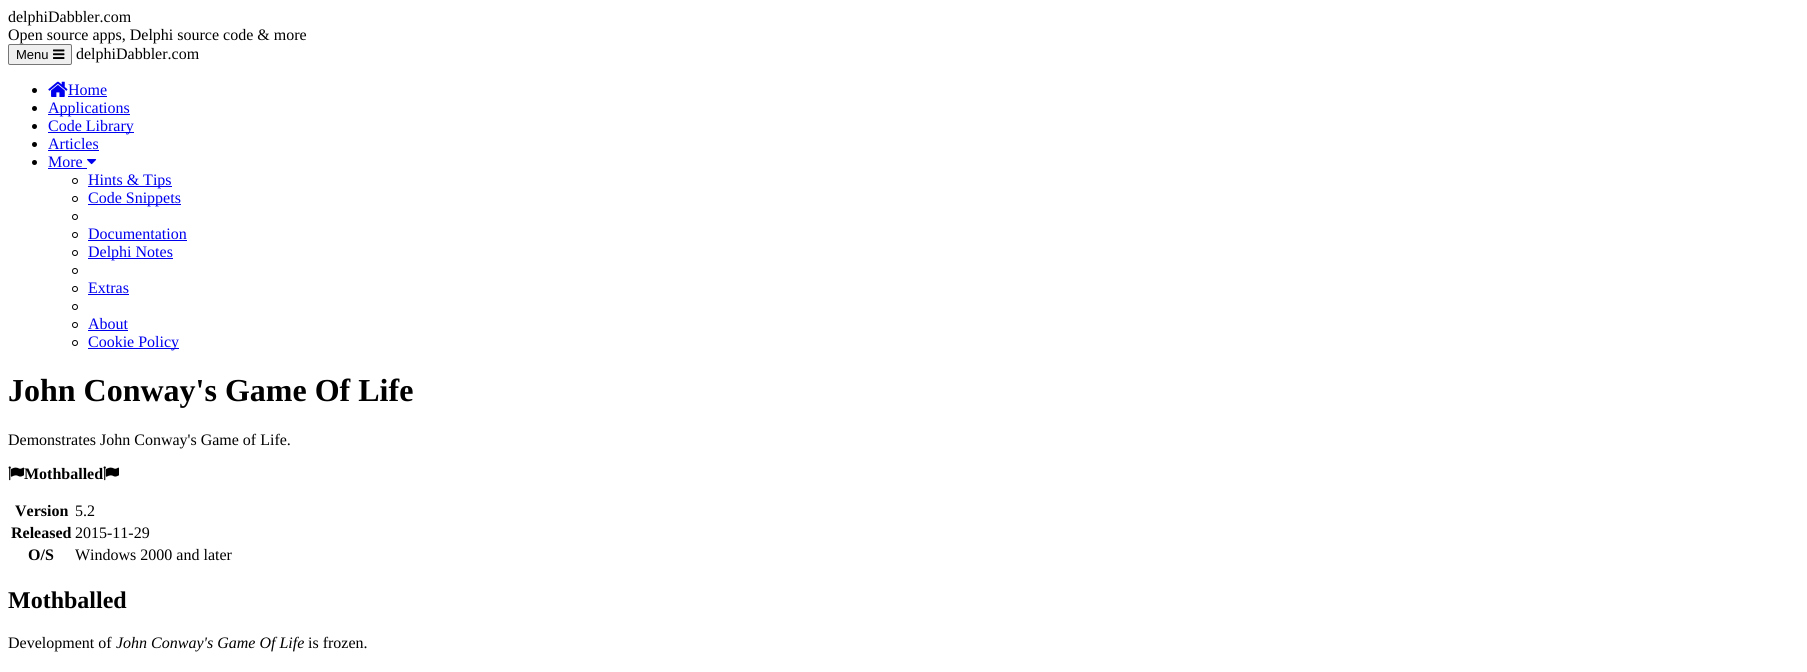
#include <cairo.h>
#include <math.h>
#include <stddef.h>


static void ink(cairo_t *ctx, unsigned color) {
    cairo_set_source_rgb(ctx, (color >> 16) / 255.0, (color >> 8 & 255) / 255.0, (color & 255) / 255.0);
}

static void round_path(cairo_t *ctx, double x, double y, double w, double h, double r) {
    cairo_new_sub_path(ctx);
    cairo_arc(ctx, x + w - r, y + h - r, r, 0, M_PI / 2);
    cairo_arc(ctx, x + r, y + h - r, r, M_PI / 2, M_PI);
    cairo_arc(ctx, x + r, y + r, r, M_PI, 1.5 * M_PI);
    cairo_arc(ctx, x + w - r, y + r, r, 1.5 * M_PI, 2 * M_PI);
    cairo_close_path(ctx);
}

static void paste(cairo_t *ctx, const char *path, double x, double y, double w, double h) {
    cairo_surface_t *image = cairo_image_surface_create_from_png(path);
    cairo_save(ctx);
    cairo_set_source_surface(ctx, image, x, y);
    cairo_rectangle(ctx, x, y, w, h);
    cairo_fill(ctx);
    cairo_restore(ctx);
    cairo_surface_destroy(image);
}

int main(void) {
    cairo_surface_t *surface = cairo_image_surface_create(CAIRO_FORMAT_RGB24, 1807, 672);
    cairo_t *ctx = cairo_create(surface);
    cairo_font_options_t *options = cairo_font_options_create();
    cairo_font_options_set_hint_metrics(options, CAIRO_HINT_METRICS_OFF);
    cairo_font_options_set_hint_style(options, CAIRO_HINT_STYLE_NONE);
    cairo_set_font_options(ctx, options);
    cairo_set_miter_limit(ctx, 4);
    ink(ctx, 0xFFFFFF);
    cairo_paint(ctx);
    cairo_select_font_face(ctx, "Liberation Serif", CAIRO_FONT_SLANT_NORMAL, CAIRO_FONT_WEIGHT_NORMAL);
    cairo_set_font_size(ctx, 16);
    ink(ctx, 0x000000);
    cairo_move_to(ctx, 8, 22);
    cairo_show_text(ctx, "delphiDabbler.com");
    cairo_move_to(ctx, 8, 40);
    cairo_show_text(ctx, "Open source apps, Delphi source code & more");
    ink(ctx, 0xEFEFEF);
    round_path(ctx, 8.5, 44.5, 63, 20, 1.5);
    cairo_fill_preserve(ctx);
    ink(ctx, 0x767676);
    cairo_set_line_width(ctx, 1);
    cairo_stroke(ctx);
    cairo_select_font_face(ctx, "Liberation Sans", CAIRO_FONT_SLANT_NORMAL, CAIRO_FONT_WEIGHT_NORMAL);
    cairo_set_font_size(ctx, 13);
    ink(ctx, 0x000000);
    cairo_move_to(ctx, 16, 59);
    cairo_show_text(ctx, "Menu");
    paste(ctx, "media/1.png", 53, 49, 12, 10);
    cairo_select_font_face(ctx, "Liberation Serif", CAIRO_FONT_SLANT_NORMAL, CAIRO_FONT_WEIGHT_NORMAL);
    cairo_set_font_size(ctx, 16);
    cairo_move_to(ctx, 76, 59);
    cairo_show_text(ctx, "delphiDabbler.com");
    cairo_new_path(ctx);
    cairo_arc(ctx, 34.5, 90.5, 2.5, 0, 2 * M_PI);
    cairo_fill(ctx);
    paste(ctx, "media/2.png", 48, 81, 20, 16);
    ink(ctx, 0x0000EE);
    cairo_move_to(ctx, 68, 95);
    cairo_show_text(ctx, "Home");
    cairo_rectangle(ctx, 68, 96, 39, 1);
    cairo_fill(ctx);
    ink(ctx, 0x000000);
    cairo_arc(ctx, 34.5, 108.5, 2.5, 0, 2 * M_PI);
    cairo_fill(ctx);
    ink(ctx, 0x0000EE);
    cairo_rectangle(ctx, 48, 114, 82, 1);
    cairo_fill(ctx);
    cairo_move_to(ctx, 48, 113);
    cairo_show_text(ctx, "Applications");
    ink(ctx, 0x000000);
    cairo_new_path(ctx);
    cairo_arc(ctx, 34.5, 126.5, 2.5, 0, 2 * M_PI);
    cairo_fill(ctx);
    ink(ctx, 0x0000EE);
    cairo_rectangle(ctx, 48, 132, 86, 1);
    cairo_fill(ctx);
    cairo_move_to(ctx, 48, 131);
    cairo_show_text(ctx, "Code Library");
    ink(ctx, 0x000000);
    cairo_new_path(ctx);
    cairo_arc(ctx, 34.5, 144.5, 2.5, 0, 2 * M_PI);
    cairo_fill(ctx);
    ink(ctx, 0x0000EE);
    cairo_move_to(ctx, 48, 149);
    cairo_show_text(ctx, "Articles");
    cairo_rectangle(ctx, 48, 150, 51, 1);
    cairo_fill(ctx);
    ink(ctx, 0x000000);
    cairo_arc(ctx, 34.5, 162.5, 2.5, 0, 2 * M_PI);
    cairo_fill(ctx);
    ink(ctx, 0x0000EE);
    cairo_move_to(ctx, 48, 167);
    cairo_show_text(ctx, "More");
    cairo_rectangle(ctx, 48, 168, 39, 1);
    cairo_fill(ctx);
    paste(ctx, "media/3.png", 87, 159, 10, 6);
    cairo_arc(ctx, 75, 181, 2.5, 0, 2 * M_PI);
    ink(ctx, 0x000000);
    cairo_stroke(ctx);
    ink(ctx, 0x0000EE);
    cairo_rectangle(ctx, 88, 186, 84, 1);
    cairo_fill(ctx);
    cairo_move_to(ctx, 88, 185);
    cairo_show_text(ctx, "Hints & Tips");
    cairo_new_path(ctx);
    cairo_arc(ctx, 75, 199, 2.5, 0, 2 * M_PI);
    ink(ctx, 0x000000);
    cairo_stroke(ctx);
    ink(ctx, 0x0000EE);
    cairo_rectangle(ctx, 88, 204, 93, 1);
    cairo_fill(ctx);
    cairo_move_to(ctx, 88, 203);
    cairo_show_text(ctx, "Code Snippets");
    cairo_new_path(ctx);
    cairo_arc(ctx, 75, 217, 2.5, 0, 2 * M_PI);
    ink(ctx, 0x000000);
    cairo_stroke(ctx);
    cairo_arc(ctx, 75, 235, 2.5, 0, 2 * M_PI);
    cairo_stroke(ctx);
    ink(ctx, 0x0000EE);
    cairo_move_to(ctx, 88, 239);
    cairo_show_text(ctx, "Documentation");
    cairo_rectangle(ctx, 88, 240, 99, 1);
    cairo_fill(ctx);
    cairo_arc(ctx, 75, 253, 2.5, 0, 2 * M_PI);
    ink(ctx, 0x000000);
    cairo_stroke(ctx);
    ink(ctx, 0x0000EE);
    cairo_rectangle(ctx, 88, 258, 85, 1);
    cairo_fill(ctx);
    cairo_move_to(ctx, 88, 257);
    cairo_show_text(ctx, "Delphi Notes");
    cairo_new_path(ctx);
    cairo_arc(ctx, 75, 271, 2.5, 0, 2 * M_PI);
    ink(ctx, 0x000000);
    cairo_stroke(ctx);
    cairo_arc(ctx, 75, 289, 2.5, 0, 2 * M_PI);
    cairo_stroke(ctx);
    ink(ctx, 0x0000EE);
    cairo_move_to(ctx, 88, 293);
    cairo_show_text(ctx, "Extras");
    cairo_rectangle(ctx, 88, 294, 41, 1);
    cairo_fill(ctx);
    cairo_arc(ctx, 75, 307, 2.5, 0, 2 * M_PI);
    ink(ctx, 0x000000);
    cairo_stroke(ctx);
    cairo_arc(ctx, 75, 325, 2.5, 0, 2 * M_PI);
    cairo_stroke(ctx);
    ink(ctx, 0x0000EE);
    cairo_move_to(ctx, 88, 329);
    cairo_show_text(ctx, "About");
    cairo_rectangle(ctx, 88, 330, 40, 1);
    cairo_fill(ctx);
    cairo_arc(ctx, 75, 343, 2.5, 0, 2 * M_PI);
    ink(ctx, 0x000000);
    cairo_stroke(ctx);
    ink(ctx, 0x0000EE);
    cairo_rectangle(ctx, 88, 348, 91, 1);
    cairo_fill(ctx);
    cairo_move_to(ctx, 88, 347);
    cairo_show_text(ctx, "Cookie Policy");
    cairo_select_font_face(ctx, "Liberation Serif", CAIRO_FONT_SLANT_NORMAL, CAIRO_FONT_WEIGHT_BOLD);
    cairo_set_font_size(ctx, 32);
    ink(ctx, 0x000000);
    cairo_move_to(ctx, 8, 401);
    cairo_show_text(ctx, "John Conway's Game Of Life");
    cairo_select_font_face(ctx, "Liberation Serif", CAIRO_FONT_SLANT_NORMAL, CAIRO_FONT_WEIGHT_NORMAL);
    cairo_set_font_size(ctx, 16);
    cairo_move_to(ctx, 8, 445);
    cairo_show_text(ctx, "Demonstrates John Conway's Game of Life.");
    paste(ctx, "media/4.png", 8, 466, 16, 15);
    cairo_select_font_face(ctx, "Liberation Serif", CAIRO_FONT_SLANT_NORMAL, CAIRO_FONT_WEIGHT_BOLD);
    cairo_move_to(ctx, 24, 479);
    cairo_show_text(ctx, "Mothballed");
    paste(ctx, "media/4.png", 103, 466, 16, 15);
    cairo_move_to(ctx, 15, 516);
    cairo_show_text(ctx, "Version");
    cairo_select_font_face(ctx, "Liberation Serif", CAIRO_FONT_SLANT_NORMAL, CAIRO_FONT_WEIGHT_NORMAL);
    cairo_move_to(ctx, 75, 516);
    cairo_show_text(ctx, "5.2");
    cairo_select_font_face(ctx, "Liberation Serif", CAIRO_FONT_SLANT_NORMAL, CAIRO_FONT_WEIGHT_BOLD);
    cairo_move_to(ctx, 11, 538);
    cairo_show_text(ctx, "Released");
    cairo_select_font_face(ctx, "Liberation Serif", CAIRO_FONT_SLANT_NORMAL, CAIRO_FONT_WEIGHT_NORMAL);
    cairo_move_to(ctx, 75, 538);
    cairo_show_text(ctx, "2015-11-29");
    cairo_select_font_face(ctx, "Liberation Serif", CAIRO_FONT_SLANT_NORMAL, CAIRO_FONT_WEIGHT_BOLD);
    cairo_move_to(ctx, 28, 560);
    cairo_show_text(ctx, "O/S");
    cairo_select_font_face(ctx, "Liberation Serif", CAIRO_FONT_SLANT_NORMAL, CAIRO_FONT_WEIGHT_NORMAL);
    cairo_move_to(ctx, 75, 560);
    cairo_show_text(ctx, "Windows 2000 and later");
    cairo_select_font_face(ctx, "Liberation Serif", CAIRO_FONT_SLANT_NORMAL, CAIRO_FONT_WEIGHT_BOLD);
    cairo_set_font_size(ctx, 24);
    cairo_move_to(ctx, 8, 608);
    cairo_show_text(ctx, "Mothballed");
    cairo_select_font_face(ctx, "Liberation Serif", CAIRO_FONT_SLANT_NORMAL, CAIRO_FONT_WEIGHT_NORMAL);
    cairo_set_font_size(ctx, 16);
    cairo_move_to(ctx, 8, 648);
    cairo_show_text(ctx, "Development of");
    cairo_select_font_face(ctx, "Liberation Serif", CAIRO_FONT_SLANT_ITALIC, CAIRO_FONT_WEIGHT_NORMAL);
    cairo_move_to(ctx, 116, 648);
    cairo_show_text(ctx, "John Conway's Game Of Life");
    cairo_select_font_face(ctx, "Liberation Serif", CAIRO_FONT_SLANT_NORMAL, CAIRO_FONT_WEIGHT_NORMAL);
    cairo_move_to(ctx, 308, 648);
    cairo_show_text(ctx, "is frozen.");
    cairo_surface_write_to_png(surface, "image.png");
    cairo_font_options_destroy(options);
    cairo_destroy(ctx);
    cairo_surface_destroy(surface);
    return 0;
}
